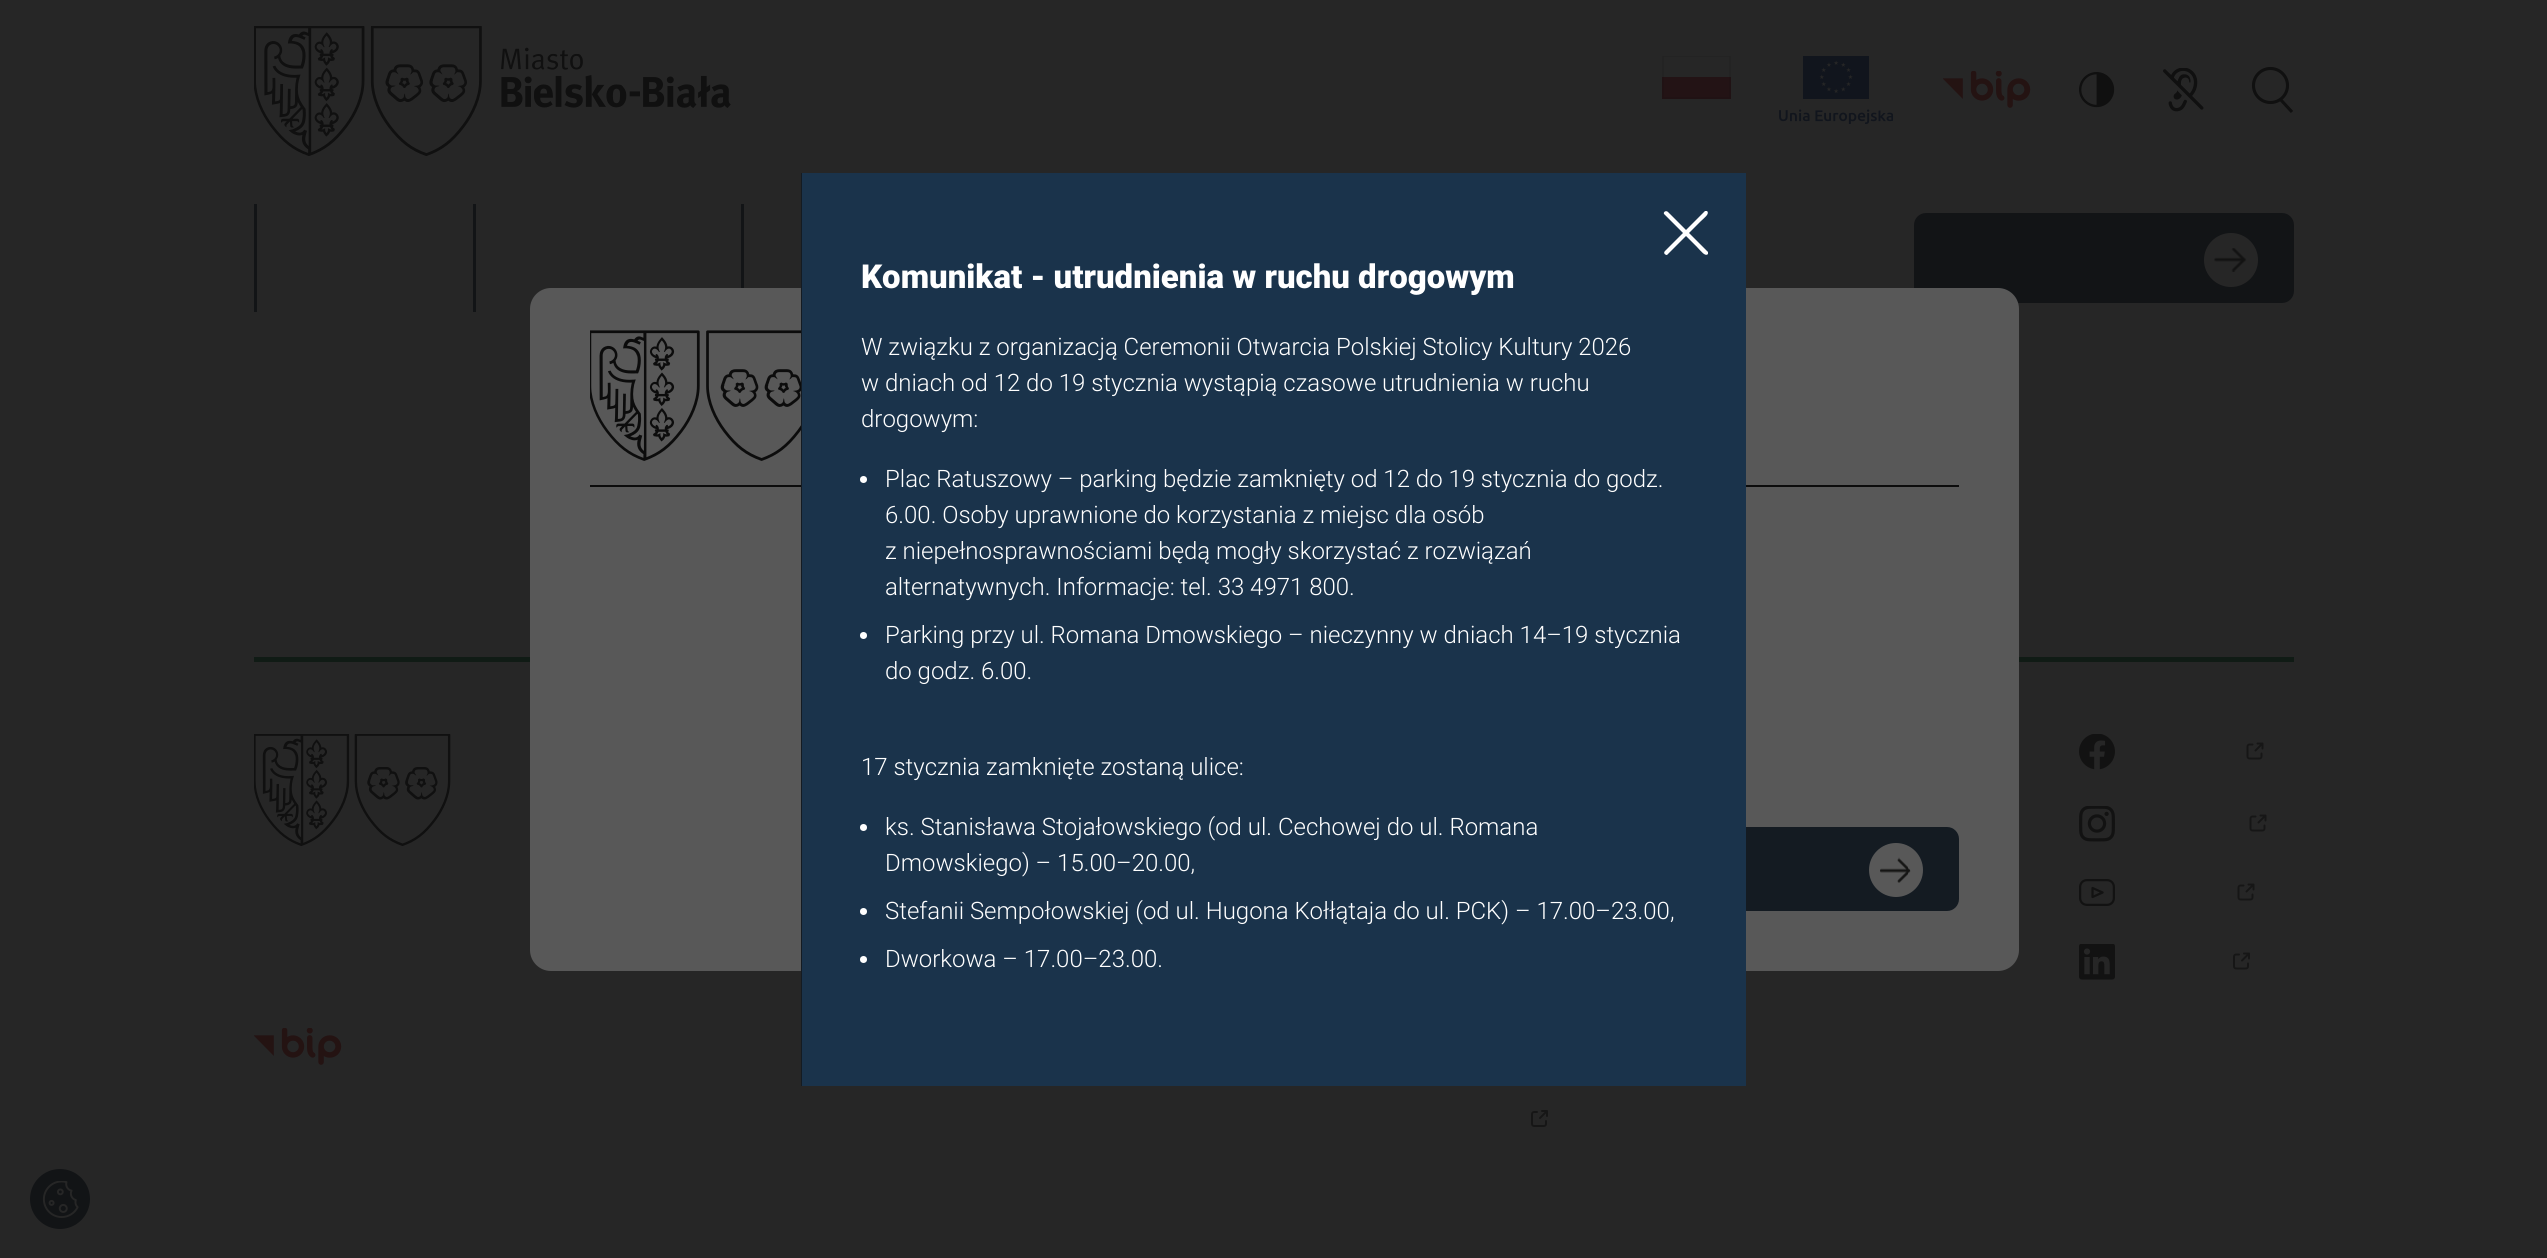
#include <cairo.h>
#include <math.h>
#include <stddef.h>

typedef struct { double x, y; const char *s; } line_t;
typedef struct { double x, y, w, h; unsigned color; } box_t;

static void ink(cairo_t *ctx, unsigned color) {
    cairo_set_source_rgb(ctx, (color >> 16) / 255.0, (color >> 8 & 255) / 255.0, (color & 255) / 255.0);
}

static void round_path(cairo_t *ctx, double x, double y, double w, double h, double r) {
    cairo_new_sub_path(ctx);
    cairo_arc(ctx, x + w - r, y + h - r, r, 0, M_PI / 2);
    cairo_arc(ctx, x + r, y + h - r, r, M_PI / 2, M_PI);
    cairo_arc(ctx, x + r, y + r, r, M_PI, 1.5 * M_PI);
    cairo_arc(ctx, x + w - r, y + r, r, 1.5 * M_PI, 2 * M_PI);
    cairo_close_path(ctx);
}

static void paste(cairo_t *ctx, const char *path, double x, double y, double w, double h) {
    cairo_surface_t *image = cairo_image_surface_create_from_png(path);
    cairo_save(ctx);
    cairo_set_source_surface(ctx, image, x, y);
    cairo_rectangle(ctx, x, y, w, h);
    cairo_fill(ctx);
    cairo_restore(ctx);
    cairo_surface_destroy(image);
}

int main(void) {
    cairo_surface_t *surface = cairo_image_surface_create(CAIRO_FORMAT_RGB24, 2547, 1258);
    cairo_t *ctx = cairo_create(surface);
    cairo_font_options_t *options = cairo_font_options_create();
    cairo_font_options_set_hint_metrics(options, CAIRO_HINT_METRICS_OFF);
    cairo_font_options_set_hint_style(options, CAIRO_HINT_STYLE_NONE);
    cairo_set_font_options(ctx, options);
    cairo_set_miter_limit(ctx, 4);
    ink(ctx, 0x585858);
    cairo_paint(ctx);
    paste(ctx, "media/1.png", 254, 26, 477, 130);
    ink(ctx, 0x4C161E);
    cairo_rectangle(ctx, 1662, 77, 69, 22);
    cairo_fill(ctx);
    cairo_save(ctx);
    cairo_rectangle(ctx, 1662, 56, 69, 43);
    cairo_clip(ctx);
    cairo_new_path(ctx);
    cairo_move_to(ctx, 1663, 56);
    cairo_line_to(ctx, 1730, 56);
    cairo_line_to(ctx, 1730, 98);
    cairo_line_to(ctx, 1663, 98);
    cairo_close_path(ctx);
    cairo_set_source_rgba(ctx, 0.047, 0.047, 0.047, 0.2);
    cairo_set_line_width(ctx, 1.5);
    cairo_stroke(ctx);
    cairo_restore(ctx);
    paste(ctx, "media/2.png", 1779, 56, 115, 68);
    paste(ctx, "media/3.png", 1943, 71, 88, 37);
    paste(ctx, "media/4.png", 2079, 72, 36, 36);
    paste(ctx, "media/5.png", 2163, 68, 41, 44);
    cairo_arc(ctx, 2270.5, 85.5, 17, 0, 2 * M_PI);
    ink(ctx, 0x0C0C0C);
    cairo_set_line_width(ctx, 3.1);
    cairo_stroke(ctx);
    cairo_new_path(ctx);
    cairo_move_to(ctx, 2280.5, 99.5);
    cairo_line_to(ctx, 2292, 112);
    cairo_stroke(ctx);
    {
        static const box_t items[] = {
            {254, 204, 3, 108, 0x141B22},
            {473, 204, 3, 108, 0x141B22},
            {741, 204, 3, 84, 0x141B22},
        };
        for (size_t i = 0; i < sizeof items / sizeof *items; i++) {
            ink(ctx, items[i].color);
            cairo_rectangle(ctx, items[i].x, items[i].y, items[i].w, items[i].h);
            cairo_fill(ctx);
        }
    }
    round_path(ctx, 1914, 213, 380, 90, 12);
    cairo_fill(ctx);
    ink(ctx, 0x585858);
    cairo_arc(ctx, 2231, 260, 27, 0, 2 * M_PI);
    cairo_fill(ctx);
    paste(ctx, "media/6.png", 2214, 248, 33, 24);
    ink(ctx, 0x0F341F);
    cairo_rectangle(ctx, 254, 657, 2040, 5);
    cairo_fill(ctx);
    paste(ctx, "media/7.png", 254, 734, 197, 112);
    paste(ctx, "media/3.png", 254, 1028, 88, 37);
    paste(ctx, "media/8.png", 2079, 734, 36, 36);
    paste(ctx, "media/9.png", 2246, 742, 18, 18);
    paste(ctx, "media/10.png", 2079, 806, 36, 36);
    paste(ctx, "media/9.png", 2249, 814, 18, 18);
    paste(ctx, "media/11.png", 2079, 879, 36, 27);
    paste(ctx, "media/9.png", 2237, 883, 18, 18);
    paste(ctx, "media/12.png", 2079, 944, 36, 36);
    paste(ctx, "media/13.png", 2233, 952, 17, 18);
    paste(ctx, "media/14.png", 1531, 1110, 17, 17);
    ink(ctx, 0xFFFFFF);
    round_path(ctx, 530, 288, 1489, 683, 21);
    cairo_fill(ctx);
    ink(ctx, 0x000000);
    cairo_rectangle(ctx, 590, 485, 1369, 2);
    cairo_fill(ctx);
    ink(ctx, 0x1A334B);
    round_path(ctx, 1566, 827, 393, 84, 12);
    cairo_fill(ctx);
    cairo_rectangle(ctx, 801, 173, 945, 913);
    cairo_fill(ctx);
    ink(ctx, 0xFFFFFF);
    cairo_arc(ctx, 863.5, 479.5, 3.5, 0, 2 * M_PI);
    cairo_fill(ctx);
    cairo_arc(ctx, 863.5, 635.5, 3.5, 0, 2 * M_PI);
    cairo_fill(ctx);
    cairo_arc(ctx, 863.5, 827.5, 3.5, 0, 2 * M_PI);
    cairo_fill(ctx);
    cairo_arc(ctx, 863.5, 911.5, 3.5, 0, 2 * M_PI);
    cairo_fill(ctx);
    cairo_arc(ctx, 863.5, 959.5, 3.5, 0, 2 * M_PI);
    cairo_fill(ctx);
    paste(ctx, "media/15.png", 590, 330, 211, 131);
    cairo_arc(ctx, 1896, 870, 27, 0, 2 * M_PI);
    cairo_fill(ctx);
    paste(ctx, "media/16.png", 1880, 857, 31, 26);
    ink(ctx, 0x141B22);
    cairo_arc(ctx, 60, 1199, 30, 0, 2 * M_PI);
    cairo_fill(ctx);
    paste(ctx, "media/17.png", 42, 1181, 37, 37);
    cairo_rectangle(ctx, -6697.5, -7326.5, 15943, 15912);
    cairo_set_source_rgba(ctx, 0.067, 0.067, 0.067, 0.7);
    cairo_set_line_width(ctx, 14999);
    cairo_stroke(ctx);
    ink(ctx, 0xFFFFFF);
    cairo_new_path(ctx);
    cairo_move_to(ctx, 1665, 251);
    cairo_line_to(ctx, 1705, 211);
    cairo_line_to(ctx, 1707, 211);
    cairo_curve_to(ctx, 1710, 214, 1704, 218, 1701, 221);
    cairo_line_to(ctx, 1667, 255);
    cairo_curve_to(ctx, 1665, 255, 1663, 253, 1665, 251);
    cairo_close_path(ctx);
    cairo_fill(ctx);
    cairo_new_path(ctx);
    cairo_move_to(ctx, 1668, 212);
    cairo_line_to(ctx, 1708, 252);
    cairo_line_to(ctx, 1708, 254);
    cairo_curve_to(ctx, 1705, 257, 1701, 251, 1697, 247);
    cairo_line_to(ctx, 1664, 214);
    cairo_curve_to(ctx, 1663, 212, 1666, 210, 1668, 212);
    cairo_close_path(ctx);
    cairo_fill(ctx);
    cairo_select_font_face(ctx, "Roboto Black", CAIRO_FONT_SLANT_NORMAL, CAIRO_FONT_WEIGHT_NORMAL);
    cairo_set_font_size(ctx, 33);
    cairo_move_to(ctx, 861, 288);
    cairo_show_text(ctx, "Komunikat - utrudnienia w ruchu drogowym");
    cairo_select_font_face(ctx, "Roboto Light", CAIRO_FONT_SLANT_NORMAL, CAIRO_FONT_WEIGHT_NORMAL);
    cairo_set_font_size(ctx, 24);
    {
        static const line_t items[] = {
            {861, 355, "W związku z organizacją Ceremonii Otwarcia Polskiej Stolicy Kultury 2026"},
            {861, 391, "w dniach od 12 do 19 stycznia wystąpią czasowe utrudnienia w ruchu"},
            {861, 427, "drogowym:"},
            {885, 487, "Plac Ratuszowy – parking będzie zamknięty od 12 do 19 stycznia do godz."},
            {885, 523, "6.00. Osoby uprawnione do korzystania z miejsc dla osób"},
            {885, 559, "z niepełnosprawnościami będą mogły skorzystać z rozwiązań"},
            {885, 595, "alternatywnych. Informacje: tel. 33 4971 800."},
            {885, 643, "Parking przy ul. Romana Dmowskiego – nieczynny w dniach 14–19 stycznia"},
            {885, 679, "do godz. 6.00."},
            {861, 775, "17 stycznia zamknięte zostaną ulice:"},
            {885, 835, "ks. Stanisława Stojałowskiego (od ul. Cechowej do ul. Romana"},
            {885, 871, "Dmowskiego) – 15.00–20.00,"},
            {885, 919, "Stefanii Sempołowskiej (od ul. Hugona Kołłątaja do ul. PCK) – 17.00–23.00,"},
            {885, 967, "Dworkowa – 17.00–23.00."},
        };
        for (size_t i = 0; i < sizeof items / sizeof *items; i++) {
            cairo_move_to(ctx, items[i].x, items[i].y);
            cairo_show_text(ctx, items[i].s);
        }
    }
    cairo_surface_write_to_png(surface, "image.png");
    cairo_font_options_destroy(options);
    cairo_destroy(ctx);
    cairo_surface_destroy(surface);
    return 0;
}
